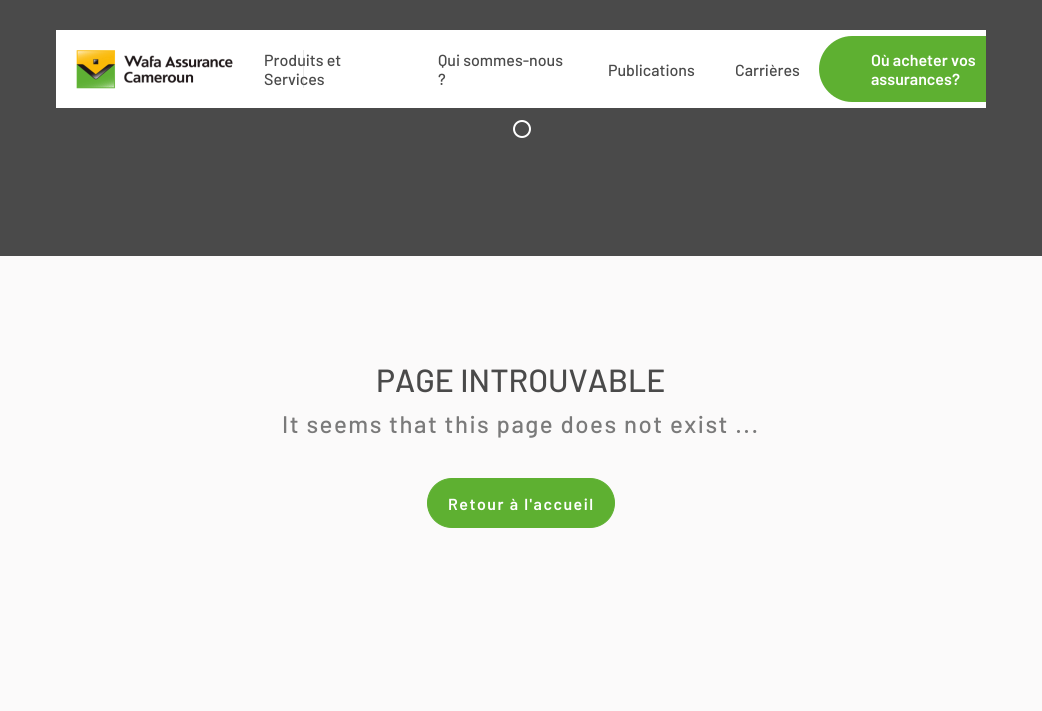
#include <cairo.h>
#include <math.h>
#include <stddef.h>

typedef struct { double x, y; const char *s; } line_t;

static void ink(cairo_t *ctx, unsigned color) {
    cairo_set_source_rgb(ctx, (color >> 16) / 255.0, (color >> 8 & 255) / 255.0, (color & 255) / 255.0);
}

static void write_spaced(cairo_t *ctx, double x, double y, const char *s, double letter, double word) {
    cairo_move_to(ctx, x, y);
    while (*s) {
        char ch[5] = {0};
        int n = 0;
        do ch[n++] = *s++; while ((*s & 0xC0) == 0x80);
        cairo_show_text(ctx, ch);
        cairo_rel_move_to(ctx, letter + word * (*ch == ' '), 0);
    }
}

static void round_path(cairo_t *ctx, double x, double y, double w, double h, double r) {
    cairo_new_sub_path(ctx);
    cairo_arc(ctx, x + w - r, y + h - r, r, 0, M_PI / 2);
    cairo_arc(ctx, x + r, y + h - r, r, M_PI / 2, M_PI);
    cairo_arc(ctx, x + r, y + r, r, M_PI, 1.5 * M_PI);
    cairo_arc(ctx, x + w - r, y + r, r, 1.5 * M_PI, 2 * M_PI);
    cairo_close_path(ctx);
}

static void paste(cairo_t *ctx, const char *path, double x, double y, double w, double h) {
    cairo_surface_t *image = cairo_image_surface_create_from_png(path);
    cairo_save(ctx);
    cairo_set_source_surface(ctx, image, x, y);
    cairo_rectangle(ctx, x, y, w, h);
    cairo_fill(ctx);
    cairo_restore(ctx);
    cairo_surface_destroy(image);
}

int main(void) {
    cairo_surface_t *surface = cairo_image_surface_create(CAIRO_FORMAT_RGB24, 1042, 711);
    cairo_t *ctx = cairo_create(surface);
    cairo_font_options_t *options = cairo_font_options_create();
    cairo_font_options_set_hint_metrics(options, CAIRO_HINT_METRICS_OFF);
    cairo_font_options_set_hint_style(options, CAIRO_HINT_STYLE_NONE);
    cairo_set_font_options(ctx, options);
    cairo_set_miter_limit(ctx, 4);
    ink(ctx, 0xFBFAFA);
    cairo_paint(ctx);
    ink(ctx, 0x4A4A4A);
    cairo_rectangle(ctx, 0, 0, 1042, 256);
    cairo_fill(ctx);
    cairo_arc(ctx, 522, 129, 8, 0, 2 * M_PI);
    ink(ctx, 0xFFFFFF);
    cairo_stroke(ctx);
    cairo_rectangle(ctx, 56, 30, 930, 78);
    cairo_fill(ctx);
    paste(ctx, "media/1.png", 76, 50, 157, 39);
    cairo_select_font_face(ctx, "Barlow Medium", CAIRO_FONT_SLANT_NORMAL, CAIRO_FONT_WEIGHT_NORMAL);
    cairo_set_font_size(ctx, 16);
    ink(ctx, 0x4A4A4A);
    cairo_move_to(ctx, 264, 66);
    cairo_show_text(ctx, "Produits et");
    cairo_move_to(ctx, 264, 85);
    cairo_show_text(ctx, "Services");
    cairo_set_source_rgba(ctx, 0.592, 0.592, 0.592, 0.23);
    cairo_rectangle(ctx, 303, 50, 1, 38);
    cairo_fill(ctx);
    ink(ctx, 0x4A4A4A);
    {
        static const line_t items[] = {
            {438, 66, "Qui sommes-nous"},
            {438, 85, "?"},
            {608, 76, "Publications"},
            {735, 76, "Carrières"},
        };
        for (size_t i = 0; i < sizeof items / sizeof *items; i++) {
            cairo_move_to(ctx, items[i].x, items[i].y);
            cairo_show_text(ctx, items[i].s);
        }
    }
    ink(ctx, 0x5EB031);
    cairo_new_path(ctx);
    cairo_move_to(ctx, 852, 36);
    cairo_line_to(ctx, 986, 36);
    cairo_line_to(ctx, 986, 102);
    cairo_line_to(ctx, 852, 102);
    cairo_curve_to(ctx, 834, 102, 819, 87, 819, 69);
    cairo_curve_to(ctx, 819, 51, 834, 36, 852, 36);
    cairo_close_path(ctx);
    cairo_fill(ctx);
    cairo_select_font_face(ctx, "Barlow SemiBold", CAIRO_FONT_SLANT_NORMAL, CAIRO_FONT_WEIGHT_NORMAL);
    ink(ctx, 0xFFFFFF);
    cairo_move_to(ctx, 871, 66);
    cairo_show_text(ctx, "Où acheter vos");
    cairo_move_to(ctx, 871, 85);
    cairo_show_text(ctx, "assurances?");
    cairo_select_font_face(ctx, "Barlow Medium", CAIRO_FONT_SLANT_NORMAL, CAIRO_FONT_WEIGHT_NORMAL);
    cairo_set_font_size(ctx, 32);
    ink(ctx, 0x4A4A4A);
    cairo_move_to(ctx, 376, 392);
    cairo_show_text(ctx, "PAGE INTROUVABLE");
    cairo_set_font_size(ctx, 24);
    ink(ctx, 0x7A7A7A);
    write_spaced(ctx, 282, 433, "It seems that this page does not exist ...", 1.5, 0);
    ink(ctx, 0x5EB031);
    round_path(ctx, 427.5, 478.5, 187, 49, 24.5);
    cairo_fill_preserve(ctx);
    cairo_set_line_width(ctx, 1);
    cairo_stroke(ctx);
    cairo_select_font_face(ctx, "Barlow SemiBold", CAIRO_FONT_SLANT_NORMAL, CAIRO_FONT_WEIGHT_NORMAL);
    cairo_set_font_size(ctx, 16);
    ink(ctx, 0xFFFFFF);
    write_spaced(ctx, 448, 510, "Retour à l'accueil", 1.5, 0);
    cairo_surface_write_to_png(surface, "image.png");
    cairo_font_options_destroy(options);
    cairo_destroy(ctx);
    cairo_surface_destroy(surface);
    return 0;
}
